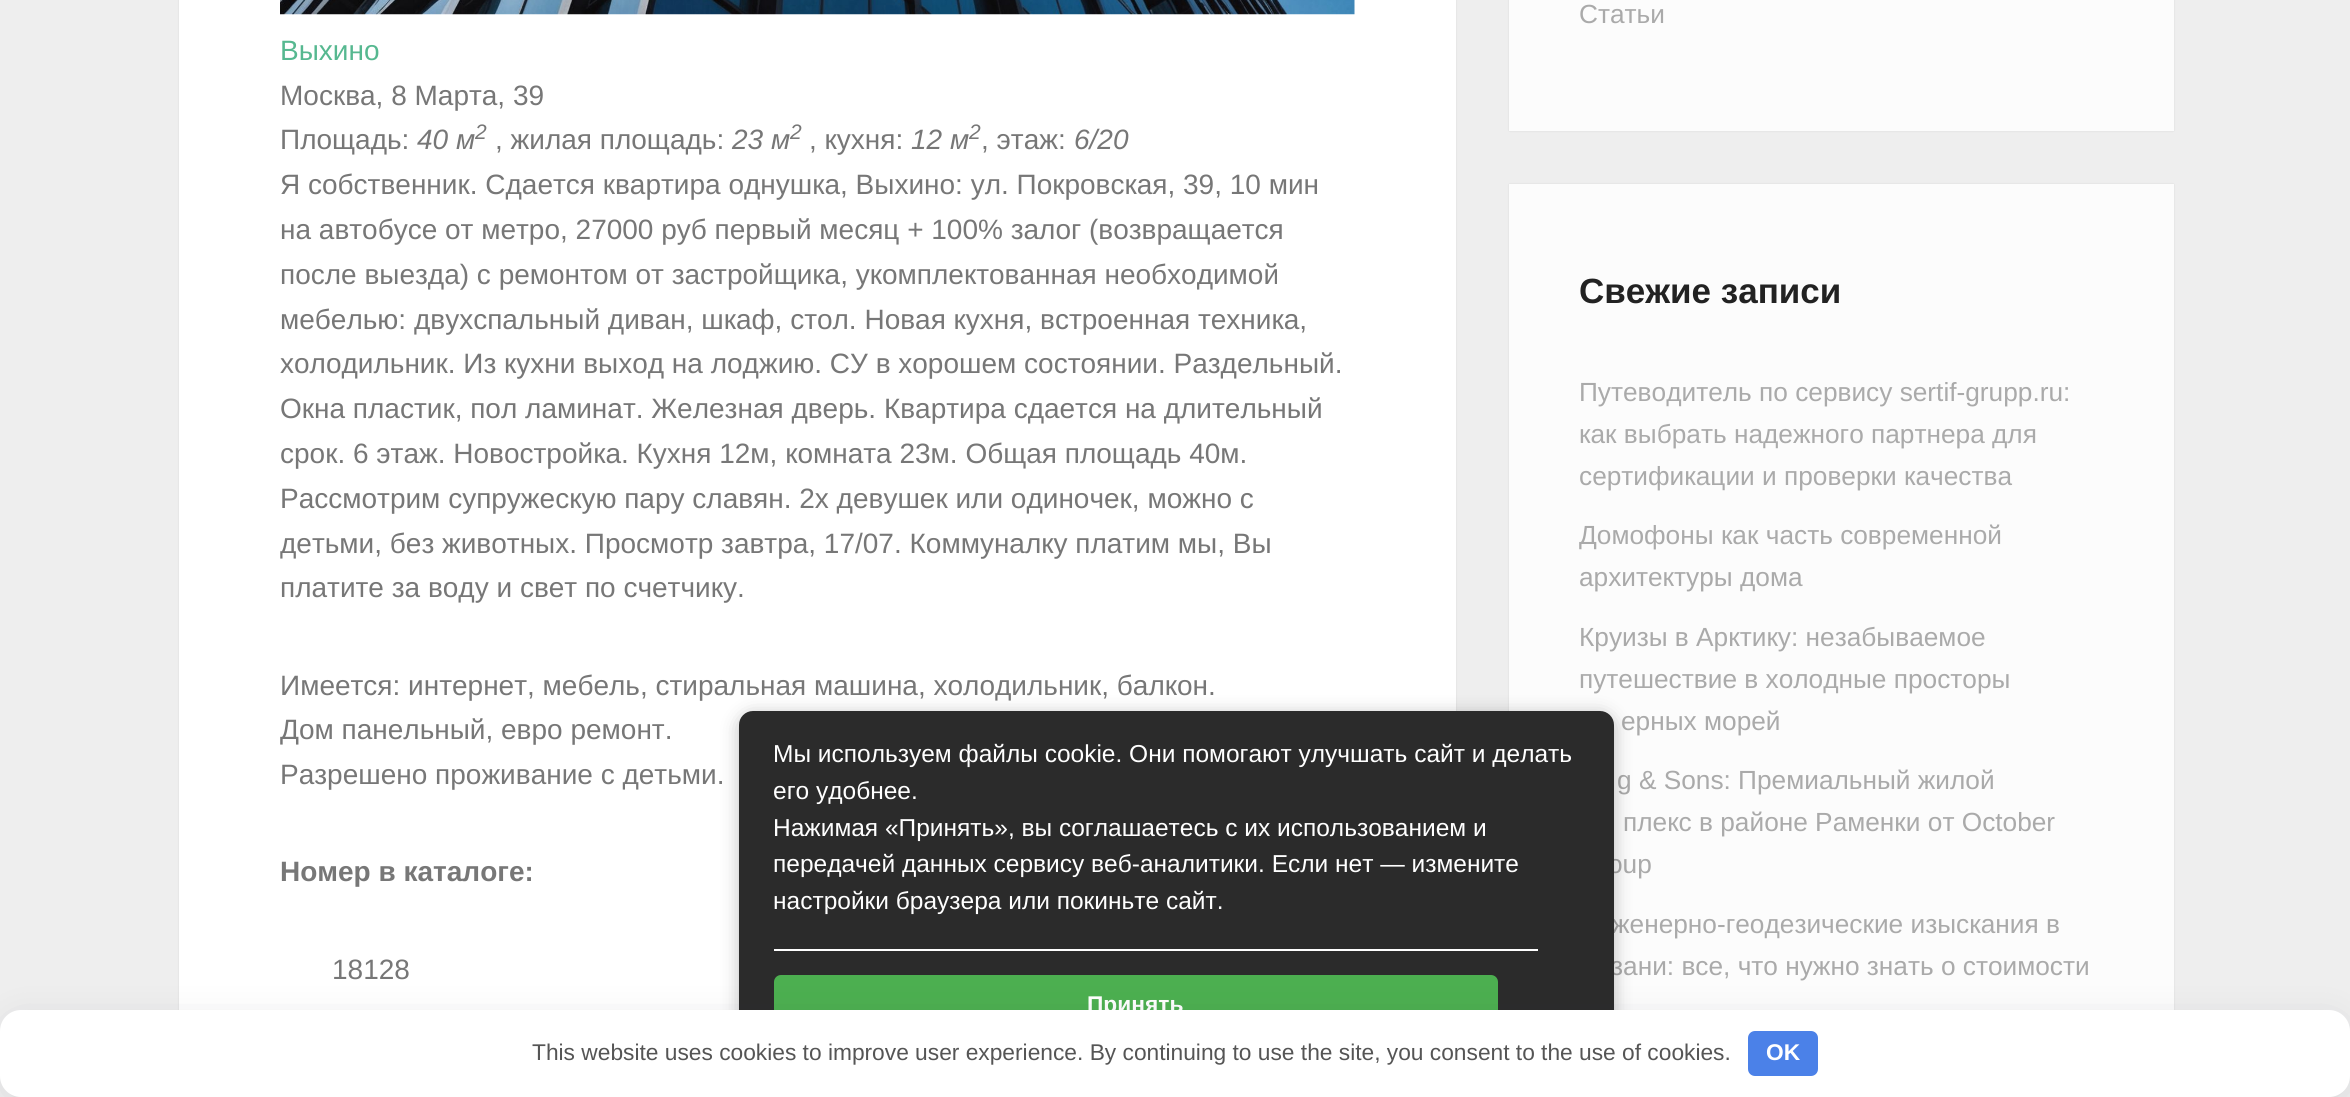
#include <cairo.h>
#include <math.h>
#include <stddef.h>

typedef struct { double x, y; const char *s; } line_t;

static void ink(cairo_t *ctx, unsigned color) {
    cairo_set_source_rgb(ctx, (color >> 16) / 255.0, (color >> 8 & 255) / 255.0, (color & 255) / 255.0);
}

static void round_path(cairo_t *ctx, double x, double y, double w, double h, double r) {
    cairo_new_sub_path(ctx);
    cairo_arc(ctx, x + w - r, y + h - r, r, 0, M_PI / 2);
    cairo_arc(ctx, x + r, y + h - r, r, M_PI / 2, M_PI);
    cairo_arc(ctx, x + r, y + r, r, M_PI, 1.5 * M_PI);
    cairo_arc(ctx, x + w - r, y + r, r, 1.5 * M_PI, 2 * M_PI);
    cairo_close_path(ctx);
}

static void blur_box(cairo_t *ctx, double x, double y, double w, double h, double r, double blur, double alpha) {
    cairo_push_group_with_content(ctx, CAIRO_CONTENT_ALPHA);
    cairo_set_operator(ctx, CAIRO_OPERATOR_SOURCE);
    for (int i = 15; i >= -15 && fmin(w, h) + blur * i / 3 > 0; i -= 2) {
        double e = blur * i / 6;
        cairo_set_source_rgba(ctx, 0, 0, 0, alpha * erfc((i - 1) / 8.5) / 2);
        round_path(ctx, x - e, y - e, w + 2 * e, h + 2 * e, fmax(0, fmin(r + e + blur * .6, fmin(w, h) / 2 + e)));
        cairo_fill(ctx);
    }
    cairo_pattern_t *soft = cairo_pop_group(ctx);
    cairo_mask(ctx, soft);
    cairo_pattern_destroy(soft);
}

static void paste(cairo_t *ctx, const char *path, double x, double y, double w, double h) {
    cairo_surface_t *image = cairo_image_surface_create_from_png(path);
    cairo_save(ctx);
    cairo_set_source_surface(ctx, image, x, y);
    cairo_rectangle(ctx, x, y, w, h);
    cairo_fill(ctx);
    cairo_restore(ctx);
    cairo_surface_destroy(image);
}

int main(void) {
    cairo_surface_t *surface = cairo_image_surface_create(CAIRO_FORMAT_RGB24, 2350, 1097);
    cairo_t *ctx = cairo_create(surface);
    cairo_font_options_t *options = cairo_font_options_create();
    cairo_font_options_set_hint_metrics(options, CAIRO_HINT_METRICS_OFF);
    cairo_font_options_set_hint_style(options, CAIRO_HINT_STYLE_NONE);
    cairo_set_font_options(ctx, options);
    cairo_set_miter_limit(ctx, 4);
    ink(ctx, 0xEEEEEE);
    cairo_paint(ctx);
    ink(ctx, 0x000000);
    blur_box(ctx, 179, -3, 1277, 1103, 0, 1, 0.08);
    ink(ctx, 0xFFFFFF);
    cairo_rectangle(ctx, 179, 0, 1277, 1010);
    cairo_fill(ctx);
    paste(ctx, "media/1.png", 280, 0, 1075, 15);
    cairo_select_font_face(ctx, "Liberation Sans", CAIRO_FONT_SLANT_NORMAL, CAIRO_FONT_WEIGHT_NORMAL);
    cairo_set_font_size(ctx, 28);
    ink(ctx, 0x56B890);
    cairo_move_to(ctx, 280, 60);
    cairo_show_text(ctx, "Выхино");
    ink(ctx, 0x777777);
    cairo_move_to(ctx, 280, 105);
    cairo_show_text(ctx, "Москва, 8 Марта, 39");
    cairo_move_to(ctx, 280, 149);
    cairo_show_text(ctx, "Площадь:");
    cairo_select_font_face(ctx, "Liberation Sans", CAIRO_FONT_SLANT_ITALIC, CAIRO_FONT_WEIGHT_NORMAL);
    cairo_move_to(ctx, 417, 149);
    cairo_show_text(ctx, "40 м");
    cairo_set_font_size(ctx, 21);
    cairo_move_to(ctx, 475, 139);
    cairo_show_text(ctx, "2");
    cairo_select_font_face(ctx, "Liberation Sans", CAIRO_FONT_SLANT_NORMAL, CAIRO_FONT_WEIGHT_NORMAL);
    cairo_set_font_size(ctx, 28);
    cairo_move_to(ctx, 495, 149);
    cairo_show_text(ctx, ", жилая площадь:");
    cairo_select_font_face(ctx, "Liberation Sans", CAIRO_FONT_SLANT_ITALIC, CAIRO_FONT_WEIGHT_NORMAL);
    cairo_move_to(ctx, 732, 149);
    cairo_show_text(ctx, "23 м");
    cairo_set_font_size(ctx, 21);
    cairo_move_to(ctx, 790, 139);
    cairo_show_text(ctx, "2");
    cairo_select_font_face(ctx, "Liberation Sans", CAIRO_FONT_SLANT_NORMAL, CAIRO_FONT_WEIGHT_NORMAL);
    cairo_set_font_size(ctx, 28);
    cairo_move_to(ctx, 809, 149);
    cairo_show_text(ctx, ", кухня:");
    cairo_select_font_face(ctx, "Liberation Sans", CAIRO_FONT_SLANT_ITALIC, CAIRO_FONT_WEIGHT_NORMAL);
    cairo_move_to(ctx, 911, 149);
    cairo_show_text(ctx, "12 м");
    cairo_set_font_size(ctx, 21);
    cairo_move_to(ctx, 969, 139);
    cairo_show_text(ctx, "2");
    cairo_select_font_face(ctx, "Liberation Sans", CAIRO_FONT_SLANT_NORMAL, CAIRO_FONT_WEIGHT_NORMAL);
    cairo_set_font_size(ctx, 28);
    cairo_move_to(ctx, 981, 149);
    cairo_show_text(ctx, ", этаж:");
    cairo_select_font_face(ctx, "Liberation Sans", CAIRO_FONT_SLANT_ITALIC, CAIRO_FONT_WEIGHT_NORMAL);
    cairo_move_to(ctx, 1074, 149);
    cairo_show_text(ctx, "6/20");
    cairo_select_font_face(ctx, "Liberation Sans", CAIRO_FONT_SLANT_NORMAL, CAIRO_FONT_WEIGHT_NORMAL);
    {
        static const line_t items[] = {
            {280, 194, "Я собственник. Сдается квартира однушка, Выхино: ул. Покровская, 39, 10 мин"},
            {280, 239, "на автобусе от метро, 27000 руб первый месяц + 100% залог (возвращается"},
            {280, 284, "после выезда) с ремонтом от застройщика, укомплектованная необходимой"},
            {280, 329, "мебелью: двухспальный диван, шкаф, стол. Новая кухня, встроенная техника,"},
            {280, 373, "холодильник. Из кухни выход на лоджию. СУ в хорошем состоянии. Раздельный."},
            {280, 418, "Окна пластик, пол ламинат. Железная дверь. Квартира сдается на длительный"},
            {280, 463, "срок. 6 этаж. Новостройка. Кухня 12м, комната 23м. Общая площадь 40м."},
            {280, 508, "Рассмотрим супружескую пару славян. 2х девушек или одиночек, можно с"},
            {280, 553, "детьми, без животных. Просмотр завтра, 17/07. Коммуналку платим мы, Вы"},
            {280, 597, "платите за воду и свет по счетчику."},
            {280, 695, "Имеется: интернет, мебель, стиральная машина, холодильник, балкон."},
            {280, 739, "Дом панельный, евро ремонт."},
            {280, 784, "Разрешено проживание с детьми."},
        };
        for (size_t i = 0; i < sizeof items / sizeof *items; i++) {
            cairo_move_to(ctx, items[i].x, items[i].y);
            cairo_show_text(ctx, items[i].s);
        }
    }
    cairo_select_font_face(ctx, "Liberation Sans", CAIRO_FONT_SLANT_NORMAL, CAIRO_FONT_WEIGHT_BOLD);
    cairo_move_to(ctx, 280, 881);
    cairo_show_text(ctx, "Номер в каталоге:");
    cairo_select_font_face(ctx, "Liberation Sans", CAIRO_FONT_SLANT_NORMAL, CAIRO_FONT_WEIGHT_NORMAL);
    cairo_move_to(ctx, 332, 979);
    cairo_show_text(ctx, "18128");
    ink(ctx, 0x000000);
    blur_box(ctx, 1509, -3, 665, 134, 0, 1, 0.08);
    ink(ctx, 0xFCFCFC);
    cairo_rectangle(ctx, 1509, 0, 665, 131);
    cairo_fill(ctx);
    cairo_set_font_size(ctx, 26.25);
    ink(ctx, 0xAAAAAA);
    cairo_move_to(ctx, 1579, 23);
    cairo_show_text(ctx, "Статьи");
    ink(ctx, 0x000000);
    blur_box(ctx, 1509, 184, 665, 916, 0, 1, 0.08);
    ink(ctx, 0xFCFCFC);
    cairo_rectangle(ctx, 1509, 184, 665, 826);
    cairo_fill(ctx);
    cairo_select_font_face(ctx, "Liberation Sans", CAIRO_FONT_SLANT_NORMAL, CAIRO_FONT_WEIGHT_BOLD);
    cairo_set_font_size(ctx, 35);
    ink(ctx, 0x222222);
    cairo_move_to(ctx, 1579, 303);
    cairo_show_text(ctx, "Свежие записи");
    cairo_select_font_face(ctx, "Liberation Sans", CAIRO_FONT_SLANT_NORMAL, CAIRO_FONT_WEIGHT_NORMAL);
    cairo_set_font_size(ctx, 26.25);
    ink(ctx, 0xAAAAAA);
    {
        static const line_t items[] = {
            {1579, 401, "Путеводитель по сервису sertif-grupp.ru:"},
            {1579, 443, "как выбрать надежного партнера для"},
            {1579, 485, "сертификации и проверки качества"},
            {1579, 544, "Домофоны как часть современной"},
            {1579, 586, "архитектуры дома"},
            {1579, 646, "Круизы в Арктику: незабываемое"},
            {1579, 688, "путешествие в холодные просторы"},
            {1621, 730, "ерных морей"},
            {1617, 789, "g & Sons: Премиальный жилой"},
            {1623, 831, "плекс в районе Раменки от October"},
            {1608, 873, "oup"},
            {1612, 933, "женерно-геодезические изыскания в"},
            {1611, 975, "зани: все, что нужно знать о стоимости"},
        };
        for (size_t i = 0; i < sizeof items / sizeof *items; i++) {
            cairo_move_to(ctx, items[i].x, items[i].y);
            cairo_show_text(ctx, items[i].s);
        }
    }
    ink(ctx, 0x000000);
    blur_box(ctx, 739, 714, 875, 352, 14, 9, 0.25);
    ink(ctx, 0x2B2B2B);
    round_path(ctx, 739, 711, 875, 351, 14);
    cairo_fill(ctx);
    cairo_set_font_size(ctx, 24.5);
    ink(ctx, 0xFFFFFF);
    {
        static const line_t items[] = {
            {773, 762, "Мы используем файлы cookie. Они помогают улучшать сайт и делать"},
            {773, 799, "его удобнее."},
            {773, 836, "Нажимая «Принять», вы соглашаетесь с их использованием и"},
            {773, 872, "передачей данных сервису веб-аналитики. Если нет — измените"},
            {773, 909, "настройки браузера или покиньте сайт."},
        };
        for (size_t i = 0; i < sizeof items / sizeof *items; i++) {
            cairo_move_to(ctx, items[i].x, items[i].y);
            cairo_show_text(ctx, items[i].s);
        }
    }
    ink(ctx, 0xFEFEFE);
    cairo_rectangle(ctx, 774, 949, 764, 2);
    cairo_fill(ctx);
    ink(ctx, 0x4CAF50);
    round_path(ctx, 774, 975, 724, 61, 7);
    cairo_fill(ctx);
    cairo_select_font_face(ctx, "Liberation Sans", CAIRO_FONT_SLANT_NORMAL, CAIRO_FONT_WEIGHT_BOLD);
    cairo_set_font_size(ctx, 22.75);
    ink(ctx, 0xFFFFFF);
    cairo_move_to(ctx, 1087, 1012);
    cairo_show_text(ctx, "Принять");
    ink(ctx, 0x292C38);
    blur_box(ctx, 9, 1024, 2333, 70, 12, 17.5, 0.2);
    ink(ctx, 0xFFFFFF);
    round_path(ctx, 0, 1010, 2350, 87, 21);
    cairo_fill(ctx);
    cairo_select_font_face(ctx, "Liberation Sans", CAIRO_FONT_SLANT_NORMAL, CAIRO_FONT_WEIGHT_NORMAL);
    ink(ctx, 0x555555);
    cairo_move_to(ctx, 532, 1060);
    cairo_show_text(ctx, "This website uses cookies to improve user experience. By continuing to use the site, you consent to the use of cookies.");
    ink(ctx, 0x4B81E8);
    round_path(ctx, 1748, 1031, 70, 45, 7);
    cairo_fill(ctx);
    cairo_select_font_face(ctx, "Liberation Sans", CAIRO_FONT_SLANT_NORMAL, CAIRO_FONT_WEIGHT_BOLD);
    ink(ctx, 0xFFFFFF);
    cairo_move_to(ctx, 1766, 1060);
    cairo_show_text(ctx, "OK");
    cairo_surface_write_to_png(surface, "image.png");
    cairo_font_options_destroy(options);
    cairo_destroy(ctx);
    cairo_surface_destroy(surface);
    return 0;
}
